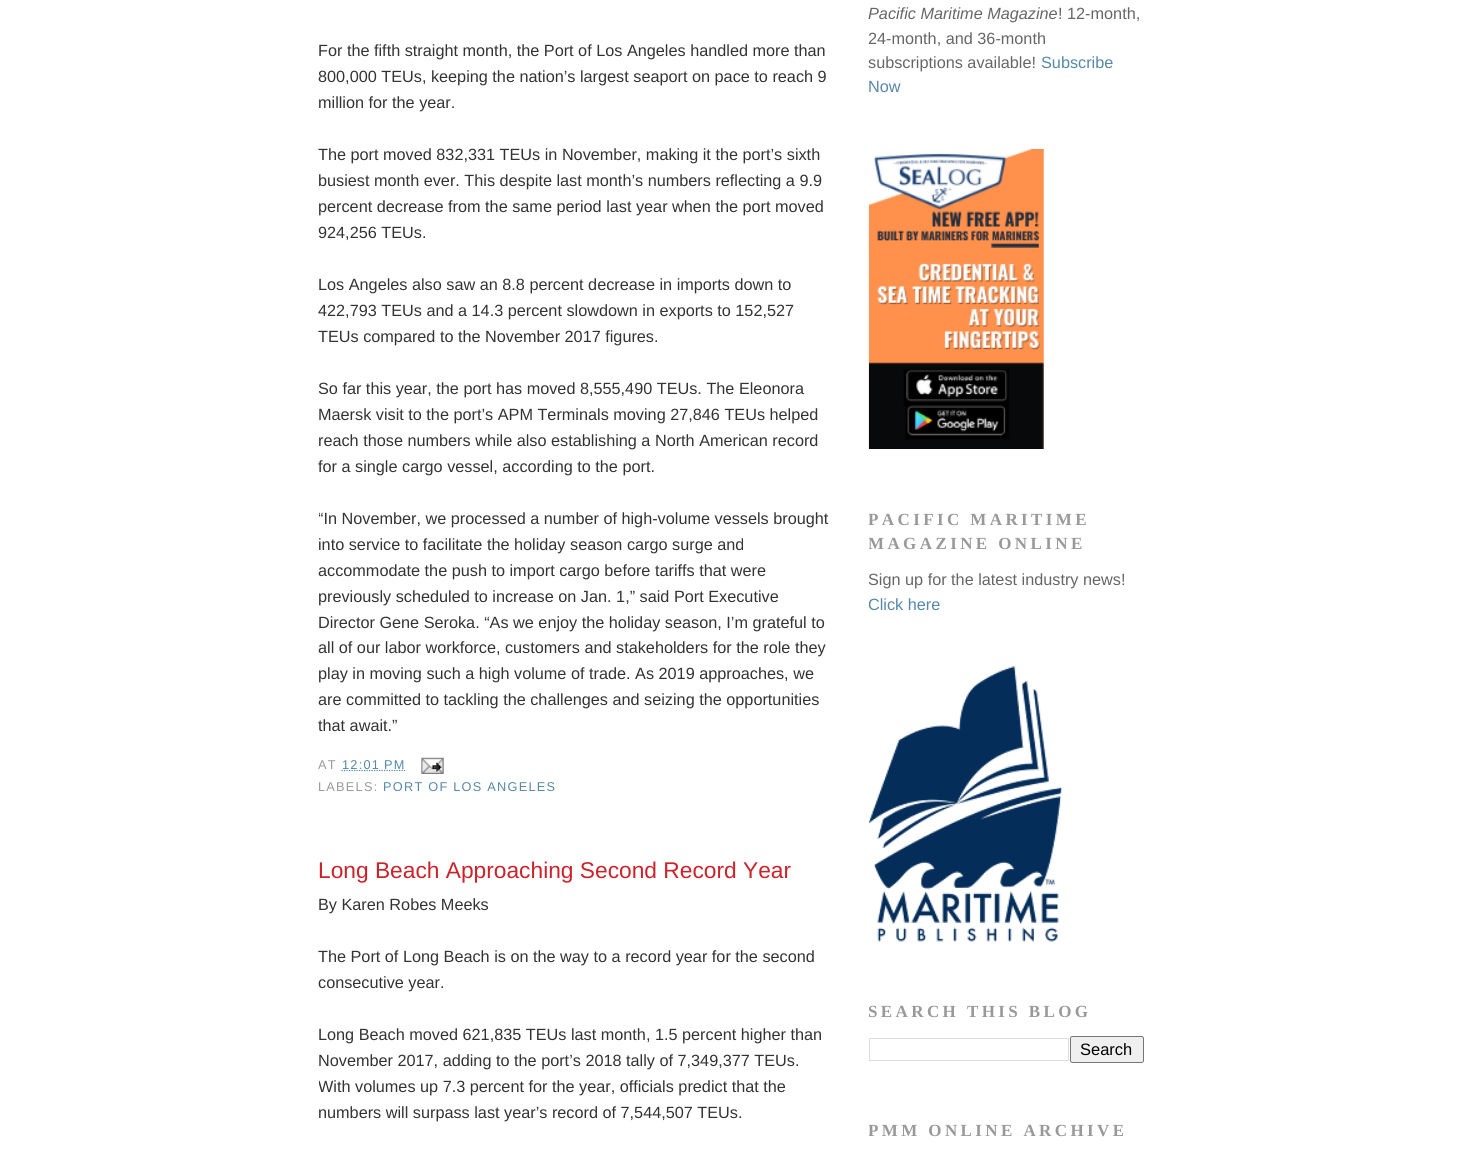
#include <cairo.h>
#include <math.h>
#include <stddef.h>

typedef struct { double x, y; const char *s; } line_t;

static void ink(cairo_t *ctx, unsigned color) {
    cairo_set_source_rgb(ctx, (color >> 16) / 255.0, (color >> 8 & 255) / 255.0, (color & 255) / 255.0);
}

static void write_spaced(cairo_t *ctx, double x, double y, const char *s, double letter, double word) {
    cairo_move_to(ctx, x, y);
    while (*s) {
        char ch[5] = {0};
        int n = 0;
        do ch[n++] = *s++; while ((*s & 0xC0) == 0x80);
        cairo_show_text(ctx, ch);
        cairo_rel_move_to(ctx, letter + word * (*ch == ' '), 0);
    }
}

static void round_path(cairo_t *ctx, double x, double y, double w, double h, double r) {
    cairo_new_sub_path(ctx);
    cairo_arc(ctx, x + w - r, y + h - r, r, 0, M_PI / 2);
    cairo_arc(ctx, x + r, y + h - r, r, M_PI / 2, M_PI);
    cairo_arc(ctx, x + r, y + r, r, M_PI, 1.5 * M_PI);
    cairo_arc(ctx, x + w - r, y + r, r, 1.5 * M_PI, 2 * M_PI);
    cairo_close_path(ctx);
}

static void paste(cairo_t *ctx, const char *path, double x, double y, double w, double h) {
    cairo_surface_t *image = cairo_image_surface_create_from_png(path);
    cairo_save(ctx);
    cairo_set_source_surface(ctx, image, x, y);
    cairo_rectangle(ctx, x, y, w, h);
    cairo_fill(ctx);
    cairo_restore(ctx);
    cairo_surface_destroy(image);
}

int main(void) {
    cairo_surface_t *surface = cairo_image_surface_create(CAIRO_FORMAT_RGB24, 1461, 1151);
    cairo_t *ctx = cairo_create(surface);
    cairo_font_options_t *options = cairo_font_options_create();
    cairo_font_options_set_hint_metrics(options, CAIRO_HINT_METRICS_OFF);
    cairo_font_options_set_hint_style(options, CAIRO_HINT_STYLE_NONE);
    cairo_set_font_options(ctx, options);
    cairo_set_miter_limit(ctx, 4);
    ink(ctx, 0xFFFFFF);
    cairo_paint(ctx);
    cairo_select_font_face(ctx, "Liberation Sans", CAIRO_FONT_SLANT_NORMAL, CAIRO_FONT_WEIGHT_NORMAL);
    cairo_set_font_size(ctx, 16.25);
    ink(ctx, 0x333333);
    {
        static const line_t items[] = {
            {318, 56, "For the fifth straight month, the Port of Los Angeles handled more than"},
            {318, 82, "800,000 TEUs, keeping the nation’s largest seaport on pace to reach 9"},
            {318, 108, "million for the year."},
            {318, 160, "The port moved 832,331 TEUs in November, making it the port’s sixth"},
            {318, 186, "busiest month ever. This despite last month’s numbers reflecting a 9.9"},
            {318, 212, "percent decrease from the same period last year when the port moved"},
            {318, 238, "924,256 TEUs."},
            {318, 290, "Los Angeles also saw an 8.8 percent decrease in imports down to"},
            {318, 316, "422,793 TEUs and a 14.3 percent slowdown in exports to 152,527"},
            {318, 342, "TEUs compared to the November 2017 figures."},
            {318, 394, "So far this year, the port has moved 8,555,490 TEUs. The Eleonora"},
            {318, 420, "Maersk visit to the port’s APM Terminals moving 27,846 TEUs helped"},
            {318, 446, "reach those numbers while also establishing a North American record"},
            {318, 472, "for a single cargo vessel, according to the port."},
        };
        for (size_t i = 0; i < sizeof items / sizeof *items; i++) {
            cairo_move_to(ctx, items[i].x, items[i].y);
            cairo_show_text(ctx, items[i].s);
        }
    }
    cairo_save(ctx);
    cairo_rectangle(ctx, 319, 0, 512, 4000);
    cairo_clip(ctx);
    cairo_move_to(ctx, 318, 524);
    cairo_show_text(ctx, "“In November, we processed a number of high-volume vessels brought");
    cairo_restore(ctx);
    {
        static const line_t items[] = {
            {318, 550, "into service to facilitate the holiday season cargo surge and"},
            {318, 576, "accommodate the push to import cargo before tariffs that were"},
            {318, 602, "previously scheduled to increase on Jan. 1,” said Port Executive"},
            {318, 628, "Director Gene Seroka. “As we enjoy the holiday season, I’m grateful to"},
            {318, 653, "all of our labor workforce, customers and stakeholders for the role they"},
            {318, 679, "play in moving such a high volume of trade. As 2019 approaches, we"},
            {318, 705, "are committed to tackling the challenges and seizing the opportunities"},
            {318, 731, "that await.”"},
        };
        for (size_t i = 0; i < sizeof items / sizeof *items; i++) {
            cairo_move_to(ctx, items[i].x, items[i].y);
            cairo_show_text(ctx, items[i].s);
        }
    }
    cairo_set_font_size(ctx, 12.75);
    ink(ctx, 0x999999);
    write_spaced(ctx, 318, 769, "AT", 1.25, 0);
    cairo_new_path(ctx);
    cairo_move_to(ctx, 341.5, 770.5);
    cairo_line_to(ctx, 405, 770.5);
    ink(ctx, 0x5588AA);
    cairo_set_line_width(ctx, 1.2);
    cairo_set_dash(ctx, (double[]){1.25, 1.25}, 2, 0);
    cairo_stroke(ctx);
    write_spaced(ctx, 342, 769, "12:01 PM", 1.25, 0);
    paste(ctx, "media/1.png", 421, 757, 23, 17);
    ink(ctx, 0x999999);
    write_spaced(ctx, 318, 791, "LABELS:", 1.25, 0);
    ink(ctx, 0x5588AA);
    write_spaced(ctx, 383, 791, "PORT OF LOS ANGELES", 1.25, 0);
    cairo_set_font_size(ctx, 22.75);
    ink(ctx, 0xCC2229);
    cairo_move_to(ctx, 318, 878);
    cairo_show_text(ctx, "Long Beach Approaching Second Record Year");
    cairo_set_font_size(ctx, 16.25);
    ink(ctx, 0x333333);
    {
        static const line_t items[] = {
            {318, 910, "By Karen Robes Meeks"},
            {318, 962, "The Port of Long Beach is on the way to a record year for the second"},
            {318, 988, "consecutive year."},
            {318, 1040, "Long Beach moved 621,835 TEUs last month, 1.5 percent higher than"},
            {318, 1066, "November 2017, adding to the port’s 2018 tally of 7,349,377 TEUs."},
        };
        for (size_t i = 0; i < sizeof items / sizeof *items; i++) {
            cairo_move_to(ctx, items[i].x, items[i].y);
            cairo_show_text(ctx, items[i].s);
        }
    }
    cairo_save(ctx);
    cairo_rectangle(ctx, 319, 0, 512, 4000);
    cairo_clip(ctx);
    cairo_move_to(ctx, 318, 1092);
    cairo_show_text(ctx, "With volumes up 7.3 percent for the year, officials predict that the");
    cairo_restore(ctx);
    cairo_move_to(ctx, 318, 1118);
    cairo_show_text(ctx, "numbers will surpass last year’s record of 7,544,507 TEUs.");
    cairo_select_font_face(ctx, "Liberation Sans", CAIRO_FONT_SLANT_ITALIC, CAIRO_FONT_WEIGHT_NORMAL);
    ink(ctx, 0x666666);
    cairo_move_to(ctx, 868, 19);
    cairo_show_text(ctx, "Pacific Maritime Magazine");
    cairo_select_font_face(ctx, "Liberation Sans", CAIRO_FONT_SLANT_NORMAL, CAIRO_FONT_WEIGHT_NORMAL);
    {
        static const line_t items[] = {
            {1058, 19, "! 12-month,"},
            {868, 44, "24-month, and 36-month"},
            {868, 68, "subscriptions available!"},
        };
        for (size_t i = 0; i < sizeof items / sizeof *items; i++) {
            cairo_move_to(ctx, items[i].x, items[i].y);
            cairo_show_text(ctx, items[i].s);
        }
    }
    ink(ctx, 0x5588AA);
    cairo_move_to(ctx, 1041, 68);
    cairo_show_text(ctx, "Subscribe");
    cairo_move_to(ctx, 868, 92);
    cairo_show_text(ctx, "Now");
    paste(ctx, "media/2.png", 868, 149, 176, 300);
    cairo_save(ctx);
    cairo_rectangle(ctx, 869, 0, 275, 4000);
    cairo_clip(ctx);
    cairo_select_font_face(ctx, "Liberation Serif", CAIRO_FONT_SLANT_NORMAL, CAIRO_FONT_WEIGHT_BOLD);
    cairo_set_font_size(ctx, 17);
    ink(ctx, 0x999999);
    write_spaced(ctx, 868, 525, "PACIFIC MARITIME", 3.4, 0);
    write_spaced(ctx, 868, 549, "MAGAZINE ONLINE", 3.4, 0);
    cairo_restore(ctx);
    ink(ctx, 0x666666);
    cairo_move_to(ctx, 868, 585);
    cairo_show_text(ctx, "Sign up for the latest industry news!");
    ink(ctx, 0x5588AA);
    cairo_move_to(ctx, 868, 610);
    cairo_show_text(ctx, "Click here");
    paste(ctx, "media/3.png", 868, 666, 194, 276);
    cairo_select_font_face(ctx, "Liberation Serif", CAIRO_FONT_SLANT_NORMAL, CAIRO_FONT_WEIGHT_BOLD);
    cairo_set_font_size(ctx, 17);
    ink(ctx, 0x999999);
    write_spaced(ctx, 868, 1017, "SEARCH THIS BLOG", 3.4, 0);
    cairo_rectangle(ctx, 869.5, 1038.5, 199, 22);
    ink(ctx, 0xDDDDDD);
    cairo_set_line_width(ctx, 1);
    cairo_set_dash(ctx, NULL, 0, 0);
    cairo_stroke(ctx);
    ink(ctx, 0xEFEFEF);
    round_path(ctx, 1070.5, 1036.5, 73, 26, 2);
    cairo_fill_preserve(ctx);
    ink(ctx, 0x767676);
    cairo_stroke(ctx);
    cairo_select_font_face(ctx, "Liberation Sans", CAIRO_FONT_SLANT_NORMAL, CAIRO_FONT_WEIGHT_NORMAL);
    cairo_set_font_size(ctx, 16.5);
    ink(ctx, 0x000000);
    cairo_move_to(ctx, 1080, 1055);
    cairo_show_text(ctx, "Search");
    cairo_save(ctx);
    cairo_rectangle(ctx, 869, 0, 275, 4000);
    cairo_clip(ctx);
    cairo_select_font_face(ctx, "Liberation Serif", CAIRO_FONT_SLANT_NORMAL, CAIRO_FONT_WEIGHT_BOLD);
    cairo_set_font_size(ctx, 17);
    ink(ctx, 0x999999);
    write_spaced(ctx, 868, 1136, "PMM ONLINE ARCHIVE", 3.4, 0);
    cairo_restore(ctx);
    cairo_surface_write_to_png(surface, "image.png");
    cairo_font_options_destroy(options);
    cairo_destroy(ctx);
    cairo_surface_destroy(surface);
    return 0;
}
